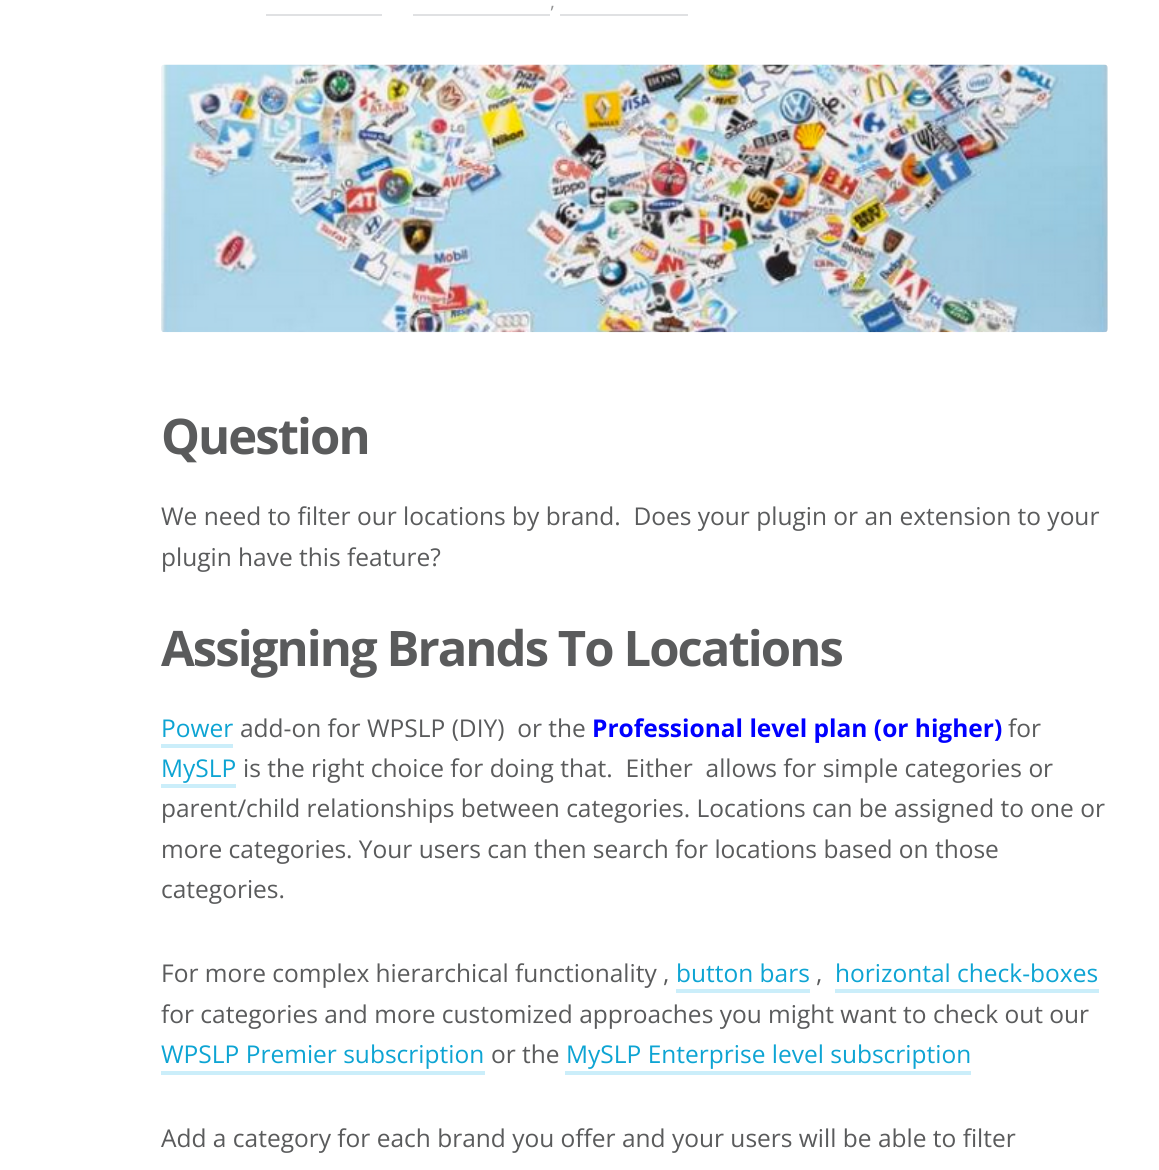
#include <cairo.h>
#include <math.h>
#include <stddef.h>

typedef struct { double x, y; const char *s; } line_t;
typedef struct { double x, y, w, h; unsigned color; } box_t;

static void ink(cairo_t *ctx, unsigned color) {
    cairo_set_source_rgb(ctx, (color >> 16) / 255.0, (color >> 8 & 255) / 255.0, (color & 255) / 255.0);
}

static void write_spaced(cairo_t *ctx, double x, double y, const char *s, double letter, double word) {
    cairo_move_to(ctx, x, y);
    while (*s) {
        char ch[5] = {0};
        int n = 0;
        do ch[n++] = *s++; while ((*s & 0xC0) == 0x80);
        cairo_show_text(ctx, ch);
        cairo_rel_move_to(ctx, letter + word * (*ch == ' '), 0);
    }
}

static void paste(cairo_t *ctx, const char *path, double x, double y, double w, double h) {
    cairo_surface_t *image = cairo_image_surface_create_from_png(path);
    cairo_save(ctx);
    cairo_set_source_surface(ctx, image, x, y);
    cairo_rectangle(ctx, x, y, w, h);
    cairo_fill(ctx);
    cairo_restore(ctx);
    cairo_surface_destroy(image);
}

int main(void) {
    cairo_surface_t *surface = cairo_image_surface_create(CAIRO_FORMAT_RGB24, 1159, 1170);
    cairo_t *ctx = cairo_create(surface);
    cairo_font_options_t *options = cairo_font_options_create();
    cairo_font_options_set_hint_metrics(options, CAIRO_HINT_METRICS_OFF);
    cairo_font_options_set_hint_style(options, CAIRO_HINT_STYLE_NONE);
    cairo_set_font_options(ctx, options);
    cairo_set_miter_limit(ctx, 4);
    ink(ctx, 0xFFFFFF);
    cairo_paint(ctx);
    cairo_select_font_face(ctx, "Open Sans", CAIRO_FONT_SLANT_NORMAL, CAIRO_FONT_WEIGHT_NORMAL);
    cairo_set_font_size(ctx, 19);
    ink(ctx, 0x929394);
    cairo_move_to(ctx, 550, 8);
    cairo_show_text(ctx, ",");
    {
        static const box_t items[] = {
            {413, 14, 137, 2, 0xE0E1E3},
            {560, 14, 128, 2, 0xE0E1E3},
            {266, 14, 116, 2, 0xE0E1E3},
        };
        for (size_t i = 0; i < sizeof items / sizeof *items; i++) {
            ink(ctx, items[i].color);
            cairo_rectangle(ctx, items[i].x, items[i].y, items[i].w, items[i].h);
            cairo_fill(ctx);
        }
    }
    paste(ctx, "media/1.png", 161, 64, 947, 269);
    cairo_select_font_face(ctx, "Open Sans", CAIRO_FONT_SLANT_NORMAL, CAIRO_FONT_WEIGHT_BOLD);
    cairo_set_font_size(ctx, 49);
    ink(ctx, 0x5A5B5C);
    write_spaced(ctx, 161, 454, "Question", -1.95, 0);
    cairo_select_font_face(ctx, "Open Sans", CAIRO_FONT_SLANT_NORMAL, CAIRO_FONT_WEIGHT_NORMAL);
    cairo_set_font_size(ctx, 24.5);
    cairo_move_to(ctx, 161, 525);
    cairo_show_text(ctx, "We need to filter our locations by brand.  Does your plugin or an extension to your");
    cairo_move_to(ctx, 161, 566);
    cairo_show_text(ctx, "plugin have this feature?");
    cairo_select_font_face(ctx, "Open Sans", CAIRO_FONT_SLANT_NORMAL, CAIRO_FONT_WEIGHT_BOLD);
    cairo_set_font_size(ctx, 49);
    write_spaced(ctx, 161, 666, "Assigning Brands To Locations", -1.95, 0);
    cairo_select_font_face(ctx, "Open Sans", CAIRO_FONT_SLANT_NORMAL, CAIRO_FONT_WEIGHT_NORMAL);
    cairo_set_font_size(ctx, 24.5);
    ink(ctx, 0x0DA4D3);
    cairo_move_to(ctx, 161, 737);
    cairo_show_text(ctx, "Power");
    ink(ctx, 0xCBEEFA);
    cairo_rectangle(ctx, 161, 744, 72, 4);
    cairo_fill(ctx);
    ink(ctx, 0x5A5B5C);
    cairo_move_to(ctx, 240, 737);
    cairo_show_text(ctx, "add-on for WPSLP (DIY)  or the");
    cairo_select_font_face(ctx, "Open Sans", CAIRO_FONT_SLANT_NORMAL, CAIRO_FONT_WEIGHT_BOLD);
    ink(ctx, 0x0000FF);
    cairo_move_to(ctx, 592, 737);
    cairo_show_text(ctx, "Professional level plan (or higher)");
    cairo_select_font_face(ctx, "Open Sans", CAIRO_FONT_SLANT_NORMAL, CAIRO_FONT_WEIGHT_NORMAL);
    ink(ctx, 0x5A5B5C);
    cairo_move_to(ctx, 1008, 737);
    cairo_show_text(ctx, "for");
    ink(ctx, 0x0DA4D3);
    cairo_move_to(ctx, 161, 777);
    cairo_show_text(ctx, "MySLP");
    ink(ctx, 0xCBEEFA);
    cairo_rectangle(ctx, 161, 784, 75, 4);
    cairo_fill(ctx);
    ink(ctx, 0x5A5B5C);
    {
        static const line_t items[] = {
            {243, 777, "is the right choice for doing that.  Either  allows for simple categories or"},
            {161, 817, "parent/child relationships between categories. Locations can be assigned to one or"},
            {161, 858, "more categories. Your users can then search for locations based on those"},
            {161, 898, "categories."},
            {161, 982, "For more complex hierarchical functionality ,"},
        };
        for (size_t i = 0; i < sizeof items / sizeof *items; i++) {
            cairo_move_to(ctx, items[i].x, items[i].y);
            cairo_show_text(ctx, items[i].s);
        }
    }
    ink(ctx, 0x0DA4D3);
    cairo_move_to(ctx, 676, 982);
    cairo_show_text(ctx, "button bars");
    ink(ctx, 0xCBEEFA);
    cairo_rectangle(ctx, 676, 989, 134, 4);
    cairo_fill(ctx);
    ink(ctx, 0x5A5B5C);
    cairo_move_to(ctx, 816, 982);
    cairo_show_text(ctx, ",");
    ink(ctx, 0x0DA4D3);
    cairo_move_to(ctx, 835, 982);
    cairo_show_text(ctx, "horizontal check-boxes");
    ink(ctx, 0xCBEEFA);
    cairo_rectangle(ctx, 835, 989, 264, 4);
    cairo_fill(ctx);
    ink(ctx, 0x5A5B5C);
    cairo_move_to(ctx, 161, 1023);
    cairo_show_text(ctx, "for categories and more customized approaches you might want to check out our");
    ink(ctx, 0x0DA4D3);
    cairo_move_to(ctx, 161, 1063);
    cairo_show_text(ctx, "WPSLP Premier subscription");
    ink(ctx, 0xCBEEFA);
    cairo_rectangle(ctx, 161, 1071, 324, 4);
    cairo_fill(ctx);
    ink(ctx, 0x5A5B5C);
    cairo_move_to(ctx, 491, 1063);
    cairo_show_text(ctx, "or the");
    ink(ctx, 0x0DA4D3);
    cairo_move_to(ctx, 566, 1063);
    cairo_show_text(ctx, "MySLP Enterprise level subscription");
    ink(ctx, 0xCBEEFA);
    cairo_rectangle(ctx, 565, 1071, 406, 4);
    cairo_fill(ctx);
    ink(ctx, 0x5A5B5C);
    cairo_move_to(ctx, 161, 1147);
    cairo_show_text(ctx, "Add a category for each brand you offer and your users will be able to filter");
    cairo_surface_write_to_png(surface, "image.png");
    cairo_font_options_destroy(options);
    cairo_destroy(ctx);
    cairo_surface_destroy(surface);
    return 0;
}
